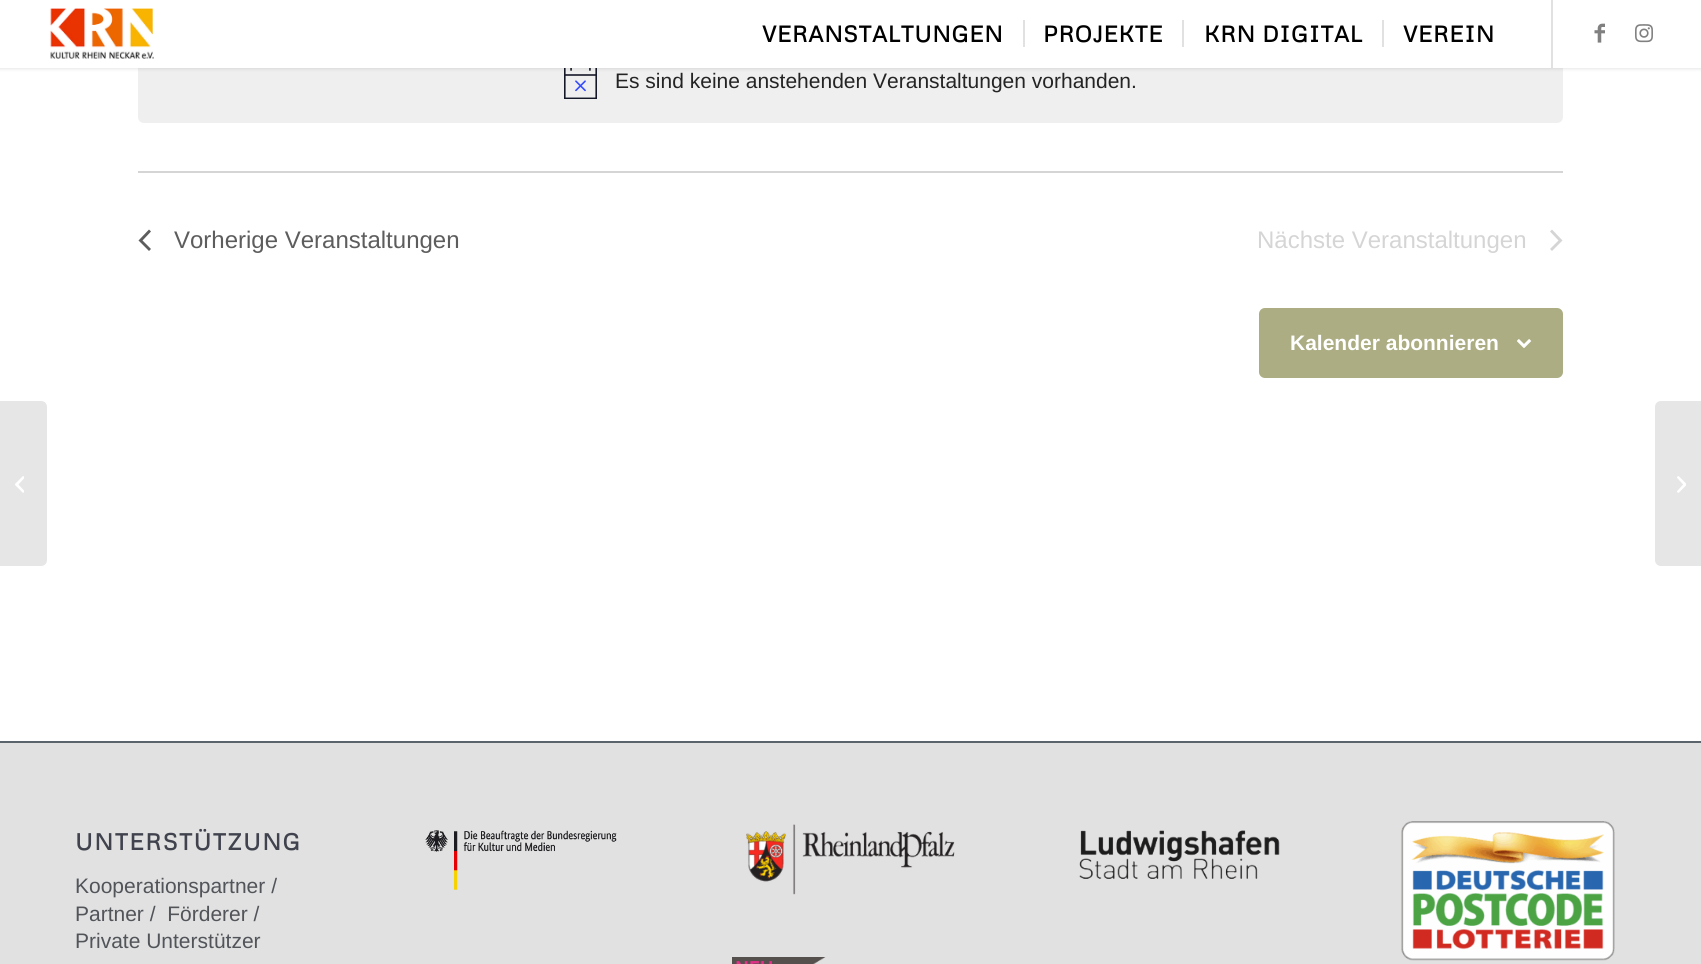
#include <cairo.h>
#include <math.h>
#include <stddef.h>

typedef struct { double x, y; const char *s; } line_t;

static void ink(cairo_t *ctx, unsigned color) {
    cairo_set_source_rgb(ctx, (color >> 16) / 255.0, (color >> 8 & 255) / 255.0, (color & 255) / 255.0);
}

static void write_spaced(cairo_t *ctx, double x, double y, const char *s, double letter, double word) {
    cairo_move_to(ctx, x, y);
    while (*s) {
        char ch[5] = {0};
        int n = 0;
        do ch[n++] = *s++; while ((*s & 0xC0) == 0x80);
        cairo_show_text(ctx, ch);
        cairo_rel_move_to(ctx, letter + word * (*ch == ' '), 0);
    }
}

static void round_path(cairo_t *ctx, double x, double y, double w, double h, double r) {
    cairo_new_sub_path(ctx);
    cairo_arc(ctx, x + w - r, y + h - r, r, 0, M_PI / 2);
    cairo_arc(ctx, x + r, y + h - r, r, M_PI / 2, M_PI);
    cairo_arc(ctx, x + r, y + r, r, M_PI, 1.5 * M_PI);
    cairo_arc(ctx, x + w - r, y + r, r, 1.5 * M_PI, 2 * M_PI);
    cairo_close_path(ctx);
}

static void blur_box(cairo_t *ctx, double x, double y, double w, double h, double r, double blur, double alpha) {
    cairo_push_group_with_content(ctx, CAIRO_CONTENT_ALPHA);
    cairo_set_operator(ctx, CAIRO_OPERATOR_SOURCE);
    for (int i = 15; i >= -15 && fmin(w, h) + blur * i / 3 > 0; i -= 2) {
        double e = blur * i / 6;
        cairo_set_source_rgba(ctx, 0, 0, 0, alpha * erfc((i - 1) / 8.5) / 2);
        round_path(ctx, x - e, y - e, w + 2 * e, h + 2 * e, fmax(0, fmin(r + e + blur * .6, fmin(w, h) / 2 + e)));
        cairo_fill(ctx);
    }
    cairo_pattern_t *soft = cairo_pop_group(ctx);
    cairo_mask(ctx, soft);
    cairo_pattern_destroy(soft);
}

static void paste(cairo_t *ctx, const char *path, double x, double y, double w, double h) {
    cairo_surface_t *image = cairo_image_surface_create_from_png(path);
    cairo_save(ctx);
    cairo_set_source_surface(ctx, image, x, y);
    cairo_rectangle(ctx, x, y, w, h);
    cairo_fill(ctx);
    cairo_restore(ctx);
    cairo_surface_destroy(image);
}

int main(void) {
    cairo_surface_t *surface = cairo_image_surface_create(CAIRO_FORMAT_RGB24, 1701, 964);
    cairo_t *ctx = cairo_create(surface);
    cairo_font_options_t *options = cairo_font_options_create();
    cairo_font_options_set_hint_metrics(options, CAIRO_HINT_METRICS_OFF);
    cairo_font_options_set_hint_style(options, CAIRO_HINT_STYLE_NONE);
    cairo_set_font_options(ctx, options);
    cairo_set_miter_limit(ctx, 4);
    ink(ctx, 0xFFFFFF);
    cairo_paint(ctx);
    ink(ctx, 0xEFEFF0);
    round_path(ctx, 138, 39, 1425, 84, 6);
    cairo_fill(ctx);
    paste(ctx, "media/5.png", 564, 68, 33, 31);
    ink(ctx, 0x000000);
    blur_box(ctx, -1, -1, 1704, 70, 0, 1.5, 0.1);
    ink(ctx, 0xFFFFFF);
    cairo_rectangle(ctx, 0, 0, 1701, 68);
    cairo_fill(ctx);
    paste(ctx, "media/1.png", 50, 8, 104, 51);
    ink(ctx, 0xE1E1E1);
    cairo_rectangle(ctx, 1551, 0, 2, 68);
    cairo_fill(ctx);
    cairo_select_font_face(ctx, "Metrophobic", CAIRO_FONT_SLANT_NORMAL, CAIRO_FONT_WEIGHT_BOLD);
    cairo_set_font_size(ctx, 22.5);
    ink(ctx, 0x000000);
    write_spaced(ctx, 762, 42, "VERANSTALTUNGEN", 0.7, 0);
    write_spaced(ctx, 1043, 42, "PROJEKTE", 0.7, 0);
    ink(ctx, 0xE1E1E1);
    cairo_rectangle(ctx, 1023, 20, 2, 27);
    cairo_fill(ctx);
    ink(ctx, 0x000000);
    write_spaced(ctx, 1204, 42, "KRN DIGITAL", 0.7, 0);
    ink(ctx, 0xE1E1E1);
    cairo_rectangle(ctx, 1182, 20, 2, 27);
    cairo_fill(ctx);
    ink(ctx, 0x000000);
    write_spaced(ctx, 1403, 42, "VEREIN", 0.7, 0);
    ink(ctx, 0xE1E1E1);
    cairo_rectangle(ctx, 1382, 20, 2, 27);
    cairo_fill(ctx);
    paste(ctx, "media/2.png", 1594, 23, 11, 20);
    paste(ctx, "media/3.png", 1635, 24, 18, 19);
    ink(ctx, 0xE6E6E6);
    cairo_new_path(ctx);
    cairo_move_to(ctx, 0, 401);
    cairo_line_to(ctx, 41, 401);
    cairo_curve_to(ctx, 44.5, 401, 47, 403.5, 47, 407);
    cairo_line_to(ctx, 47, 560);
    cairo_curve_to(ctx, 47, 563.5, 44.5, 566, 41, 566);
    cairo_line_to(ctx, 0, 566);
    cairo_close_path(ctx);
    cairo_fill(ctx);
    paste(ctx, "media/4.png", 15, 476, 9, 17);
    cairo_select_font_face(ctx, "Liberation Sans", CAIRO_FONT_SLANT_NORMAL, CAIRO_FONT_WEIGHT_NORMAL);
    cairo_set_font_size(ctx, 21);
    ink(ctx, 0x242424);
    cairo_move_to(ctx, 615, 88);
    cairo_show_text(ctx, "Es sind keine anstehenden Veranstaltungen vorhanden.");
    ink(ctx, 0xD5D5D5);
    cairo_rectangle(ctx, 138, 171, 1425, 2);
    cairo_fill(ctx);
    ink(ctx, 0x5D5D5D);
    cairo_new_path(ctx);
    cairo_move_to(ctx, 151, 249);
    cairo_line_to(ctx, 149, 251);
    cairo_line_to(ctx, 138.5, 240.5);
    cairo_line_to(ctx, 149, 229.5);
    cairo_line_to(ctx, 151, 231.5);
    cairo_line_to(ctx, 142.5, 240.5);
    cairo_close_path(ctx);
    cairo_fill(ctx);
    cairo_set_font_size(ctx, 24);
    cairo_move_to(ctx, 174, 248);
    cairo_show_text(ctx, "Vorherige Veranstaltungen");
    ink(ctx, 0xD5D5D5);
    cairo_move_to(ctx, 1257, 248);
    cairo_show_text(ctx, "Nächste Veranstaltungen");
    cairo_new_path(ctx);
    cairo_move_to(ctx, 1550, 231.5);
    cairo_line_to(ctx, 1552, 229.5);
    cairo_line_to(ctx, 1562.5, 240.5);
    cairo_line_to(ctx, 1552, 251);
    cairo_line_to(ctx, 1550, 249);
    cairo_line_to(ctx, 1558.5, 240.5);
    cairo_close_path(ctx);
    cairo_fill(ctx);
    ink(ctx, 0xACAD82);
    round_path(ctx, 1260, 309, 302, 68, 5);
    cairo_fill_preserve(ctx);
    cairo_stroke(ctx);
    cairo_select_font_face(ctx, "Liberation Sans", CAIRO_FONT_SLANT_NORMAL, CAIRO_FONT_WEIGHT_BOLD);
    cairo_set_font_size(ctx, 21);
    ink(ctx, 0xFFFFFF);
    cairo_move_to(ctx, 1290, 350);
    cairo_show_text(ctx, "Kalender abonnieren");
    paste(ctx, "media/6.png", 1517, 339, 15, 9);
    ink(ctx, 0xE1E1E1);
    cairo_rectangle(ctx, 0, 743, 1701, 221);
    cairo_fill(ctx);
    ink(ctx, 0x5B646B);
    cairo_rectangle(ctx, 0, 741, 1701, 2);
    cairo_fill(ctx);
    cairo_select_font_face(ctx, "Metrophobic", CAIRO_FONT_SLANT_NORMAL, CAIRO_FONT_WEIGHT_BOLD);
    cairo_set_font_size(ctx, 23);
    ink(ctx, 0x40424D);
    write_spaced(ctx, 75, 850, "UNTERSTÜTZUNG", 1.5, 0);
    cairo_select_font_face(ctx, "Liberation Sans", CAIRO_FONT_SLANT_NORMAL, CAIRO_FONT_WEIGHT_NORMAL);
    cairo_set_font_size(ctx, 21);
    ink(ctx, 0x515459);
    {
        static const line_t items[] = {
            {75, 893, "Kooperationspartner /"},
            {75, 921, "Partner /  Förderer /"},
            {75, 948, "Private Unterstützer"},
        };
        for (size_t i = 0; i < sizeof items / sizeof *items; i++) {
            cairo_move_to(ctx, items[i].x, items[i].y);
            cairo_show_text(ctx, items[i].s);
        }
    }
    paste(ctx, "media/7.png", 425, 830, 192, 60);
    paste(ctx, "media/8.png", 746, 824, 209, 71);
    paste(ctx, "media/9.png", 732, 957, 94, 7);
    paste(ctx, "media/10.png", 1079, 830, 201, 49);
    paste(ctx, "media/11.png", 1401, 821, 214, 140);
    ink(ctx, 0xE6E6E6);
    cairo_new_path(ctx);
    cairo_move_to(ctx, 1661, 401);
    cairo_line_to(ctx, 1701, 401);
    cairo_line_to(ctx, 1701, 566);
    cairo_line_to(ctx, 1661, 566);
    cairo_curve_to(ctx, 1657.5, 566, 1655, 563.5, 1655, 560);
    cairo_line_to(ctx, 1655, 407);
    cairo_curve_to(ctx, 1655, 403.5, 1657.5, 401, 1661, 401);
    cairo_close_path(ctx);
    cairo_fill(ctx);
    paste(ctx, "media/12.png", 1677, 476, 9, 17);
    cairo_surface_write_to_png(surface, "image.png");
    cairo_font_options_destroy(options);
    cairo_destroy(ctx);
    cairo_surface_destroy(surface);
    return 0;
}
